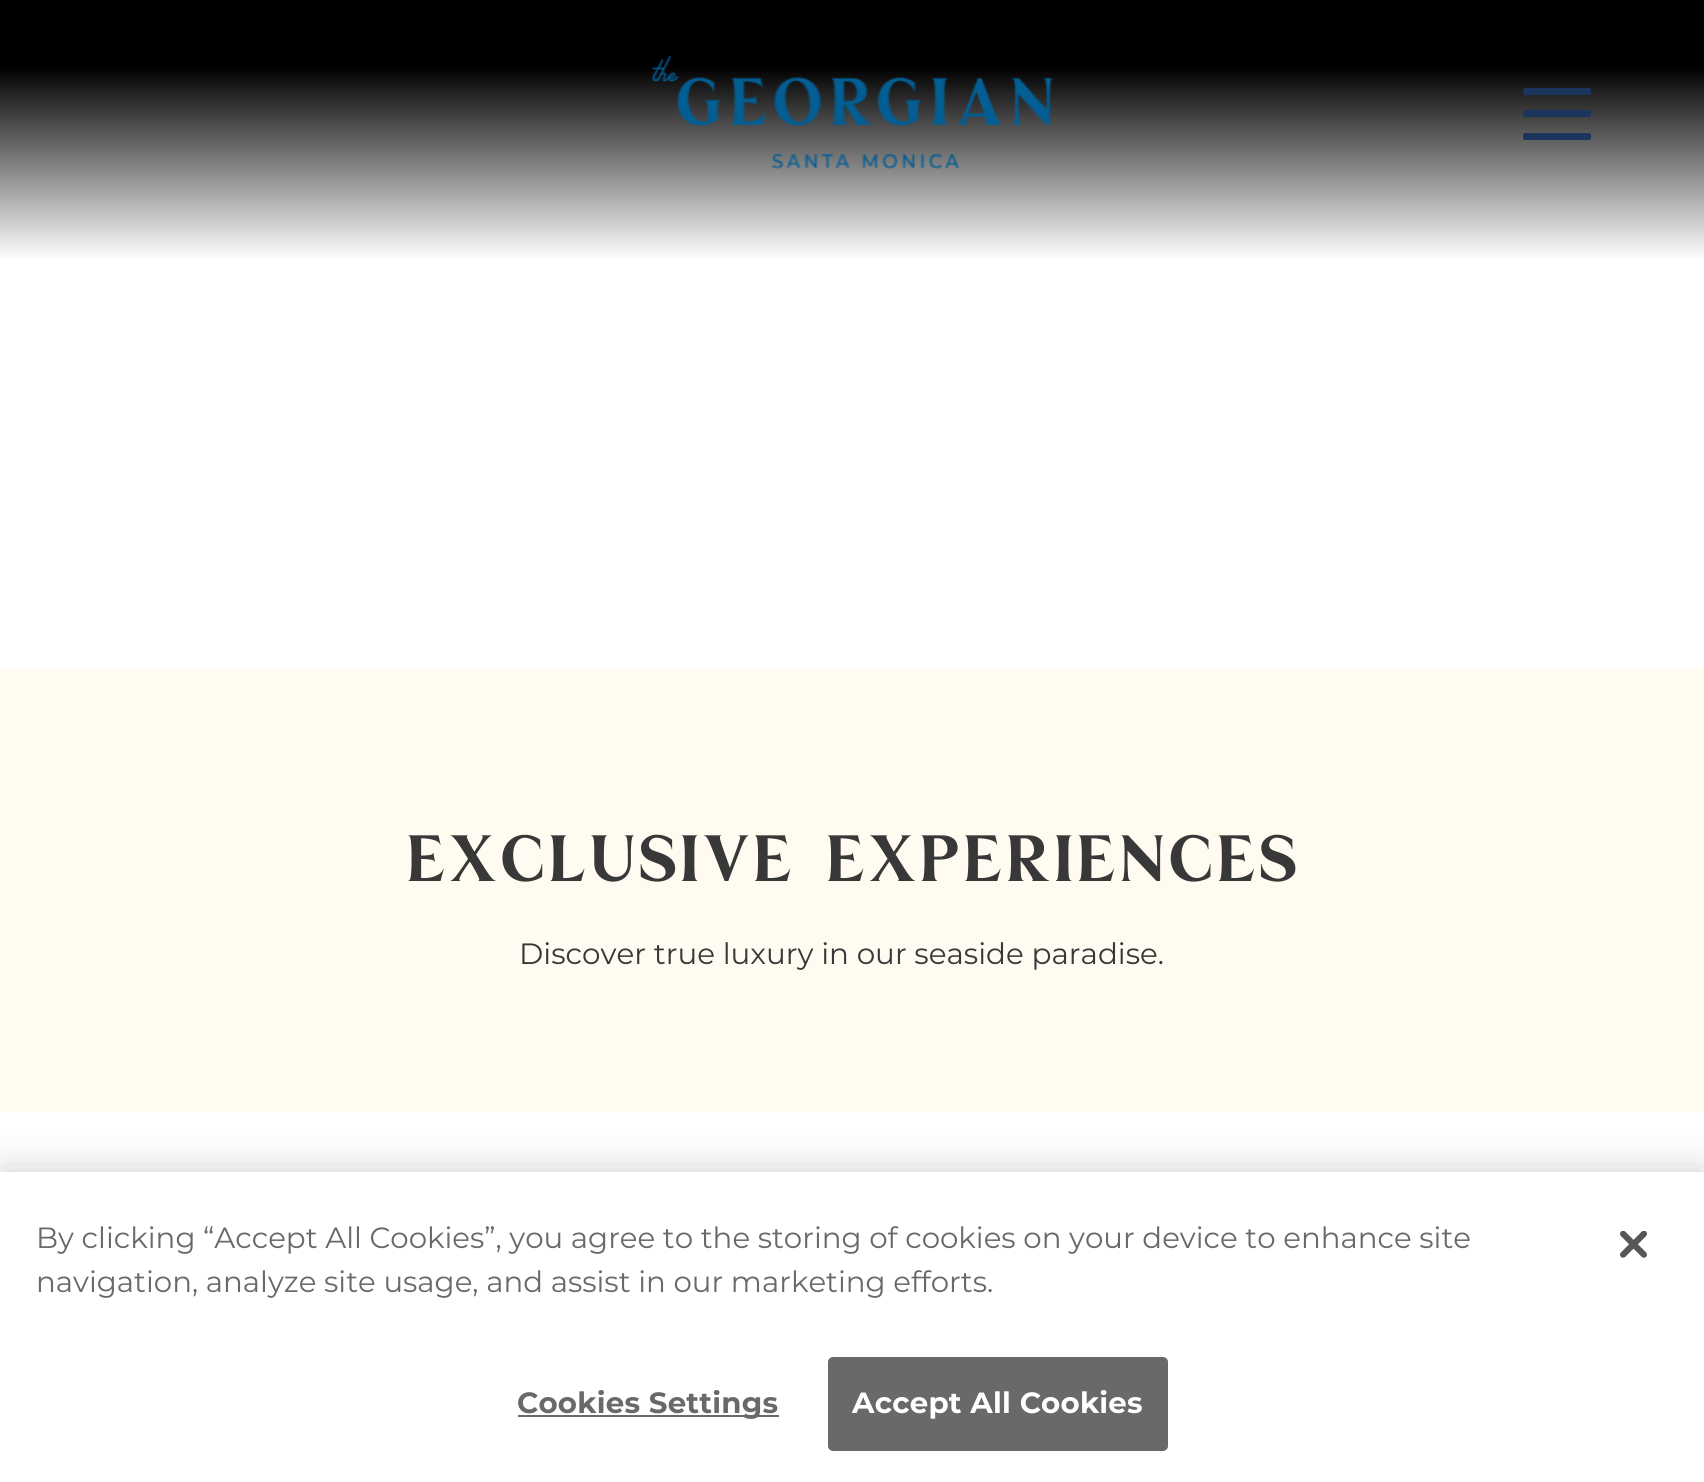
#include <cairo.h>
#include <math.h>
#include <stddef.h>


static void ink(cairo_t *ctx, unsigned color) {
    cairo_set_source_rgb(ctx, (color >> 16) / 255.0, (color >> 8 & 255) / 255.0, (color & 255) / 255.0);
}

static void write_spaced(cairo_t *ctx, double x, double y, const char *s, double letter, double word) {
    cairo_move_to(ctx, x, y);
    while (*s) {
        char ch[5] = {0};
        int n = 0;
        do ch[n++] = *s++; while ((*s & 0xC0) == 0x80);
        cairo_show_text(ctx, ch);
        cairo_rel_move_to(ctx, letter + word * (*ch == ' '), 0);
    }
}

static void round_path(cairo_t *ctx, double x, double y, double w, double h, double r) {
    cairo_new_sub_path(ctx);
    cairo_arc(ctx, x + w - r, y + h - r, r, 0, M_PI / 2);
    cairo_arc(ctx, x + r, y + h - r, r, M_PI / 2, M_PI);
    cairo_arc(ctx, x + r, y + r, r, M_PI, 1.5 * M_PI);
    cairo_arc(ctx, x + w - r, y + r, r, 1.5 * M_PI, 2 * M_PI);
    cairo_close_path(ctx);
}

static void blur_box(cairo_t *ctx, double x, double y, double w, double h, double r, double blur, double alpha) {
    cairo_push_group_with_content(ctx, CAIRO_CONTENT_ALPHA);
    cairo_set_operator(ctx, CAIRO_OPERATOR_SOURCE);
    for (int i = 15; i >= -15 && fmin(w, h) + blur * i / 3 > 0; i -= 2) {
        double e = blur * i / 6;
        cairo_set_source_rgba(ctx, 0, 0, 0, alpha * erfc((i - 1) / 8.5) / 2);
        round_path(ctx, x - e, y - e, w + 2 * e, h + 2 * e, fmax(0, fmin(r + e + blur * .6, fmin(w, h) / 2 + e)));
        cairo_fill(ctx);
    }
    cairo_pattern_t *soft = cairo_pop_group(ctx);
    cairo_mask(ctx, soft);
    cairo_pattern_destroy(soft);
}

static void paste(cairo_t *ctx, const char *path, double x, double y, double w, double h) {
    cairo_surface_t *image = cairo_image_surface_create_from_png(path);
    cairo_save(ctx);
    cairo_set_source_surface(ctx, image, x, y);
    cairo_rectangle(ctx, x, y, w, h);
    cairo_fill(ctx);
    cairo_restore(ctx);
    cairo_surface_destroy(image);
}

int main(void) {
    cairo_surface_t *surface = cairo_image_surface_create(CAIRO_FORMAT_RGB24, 1704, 1482);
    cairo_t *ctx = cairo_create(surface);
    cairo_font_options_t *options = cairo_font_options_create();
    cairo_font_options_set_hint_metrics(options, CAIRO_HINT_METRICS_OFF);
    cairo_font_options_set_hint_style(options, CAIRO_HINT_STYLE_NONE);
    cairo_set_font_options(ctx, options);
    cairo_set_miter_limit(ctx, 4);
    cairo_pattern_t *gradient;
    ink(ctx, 0xFFFFFF);
    cairo_paint(ctx);
    gradient = cairo_pattern_create_linear(853, 0, 853, 668);
    cairo_pattern_add_color_stop_rgba(gradient, 0, 0, 0, 0, 1);
    cairo_pattern_add_color_stop_rgba(gradient, 0.1, 0, 0, 0, 1);
    cairo_pattern_add_color_stop_rgba(gradient, 0.37, 0.933, 0.933, 0.933, 1);
    cairo_pattern_add_color_stop_rgba(gradient, 0.39, 1, 1, 1, 1);
    cairo_set_source(ctx, gradient);
    cairo_pattern_destroy(gradient);
    cairo_rectangle(ctx, 0, 0, 1704, 259);
    cairo_fill(ctx);
    paste(ctx, "media/1.png", 652, 56, 401, 113);
    ink(ctx, 0x1C355E);
    round_path(ctx, 1523, 88, 68, 7, 2);
    cairo_fill(ctx);
    round_path(ctx, 1523, 110, 68, 7, 2);
    cairo_fill(ctx);
    round_path(ctx, 1523, 133, 68, 7, 2);
    cairo_fill(ctx);
    ink(ctx, 0xFFFBF1);
    cairo_rectangle(ctx, 0, 668, 1704, 444);
    cairo_fill(ctx);
    cairo_select_font_face(ctx, "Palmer", CAIRO_FONT_SLANT_NORMAL, CAIRO_FONT_WEIGHT_NORMAL);
    cairo_set_font_size(ctx, 65.25);
    ink(ctx, 0x383838);
    write_spaced(ctx, 406, 881, "EXCLUSIVE EXPERIENCES", 2.25, 0);
    cairo_select_font_face(ctx, "Montserrat", CAIRO_FONT_SLANT_NORMAL, CAIRO_FONT_WEIGHT_NORMAL);
    cairo_set_font_size(ctx, 29.4);
    cairo_move_to(ctx, 519, 964);
    cairo_show_text(ctx, "Discover true luxury in our seaside paradise.");
    ink(ctx, 0x000000);
    blur_box(ctx, 0, 1172, 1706, 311, 0, 20, 0.2);
    ink(ctx, 0xFFFFFF);
    cairo_rectangle(ctx, 0, 1172, 1704, 310);
    cairo_fill(ctx);
    cairo_set_font_size(ctx, 29.25);
    ink(ctx, 0x696969);
    cairo_move_to(ctx, 36, 1248);
    cairo_show_text(ctx, "By clicking “Accept All Cookies”, you agree to the storing of cookies on your device to enhance site");
    cairo_move_to(ctx, 36, 1292);
    cairo_show_text(ctx, "navigation, analyze site usage, and assist in our marketing efforts.");
    cairo_rectangle(ctx, 518, 1415, 261, 2);
    cairo_fill(ctx);
    cairo_select_font_face(ctx, "Montserrat", CAIRO_FONT_SLANT_NORMAL, CAIRO_FONT_WEIGHT_BOLD);
    write_spaced(ctx, 517, 1413, "Cookies Settings", 0.25, 0);
    round_path(ctx, 829, 1358, 338, 92, 4);
    cairo_fill_preserve(ctx);
    cairo_stroke(ctx);
    ink(ctx, 0xFFFFFF);
    write_spaced(ctx, 852, 1413, "Accept All Cookies", 0.25, 0);
    paste(ctx, "media/2.png", 1620, 1231, 27, 27);
    cairo_surface_write_to_png(surface, "image.png");
    cairo_font_options_destroy(options);
    cairo_destroy(ctx);
    cairo_surface_destroy(surface);
    return 0;
}
